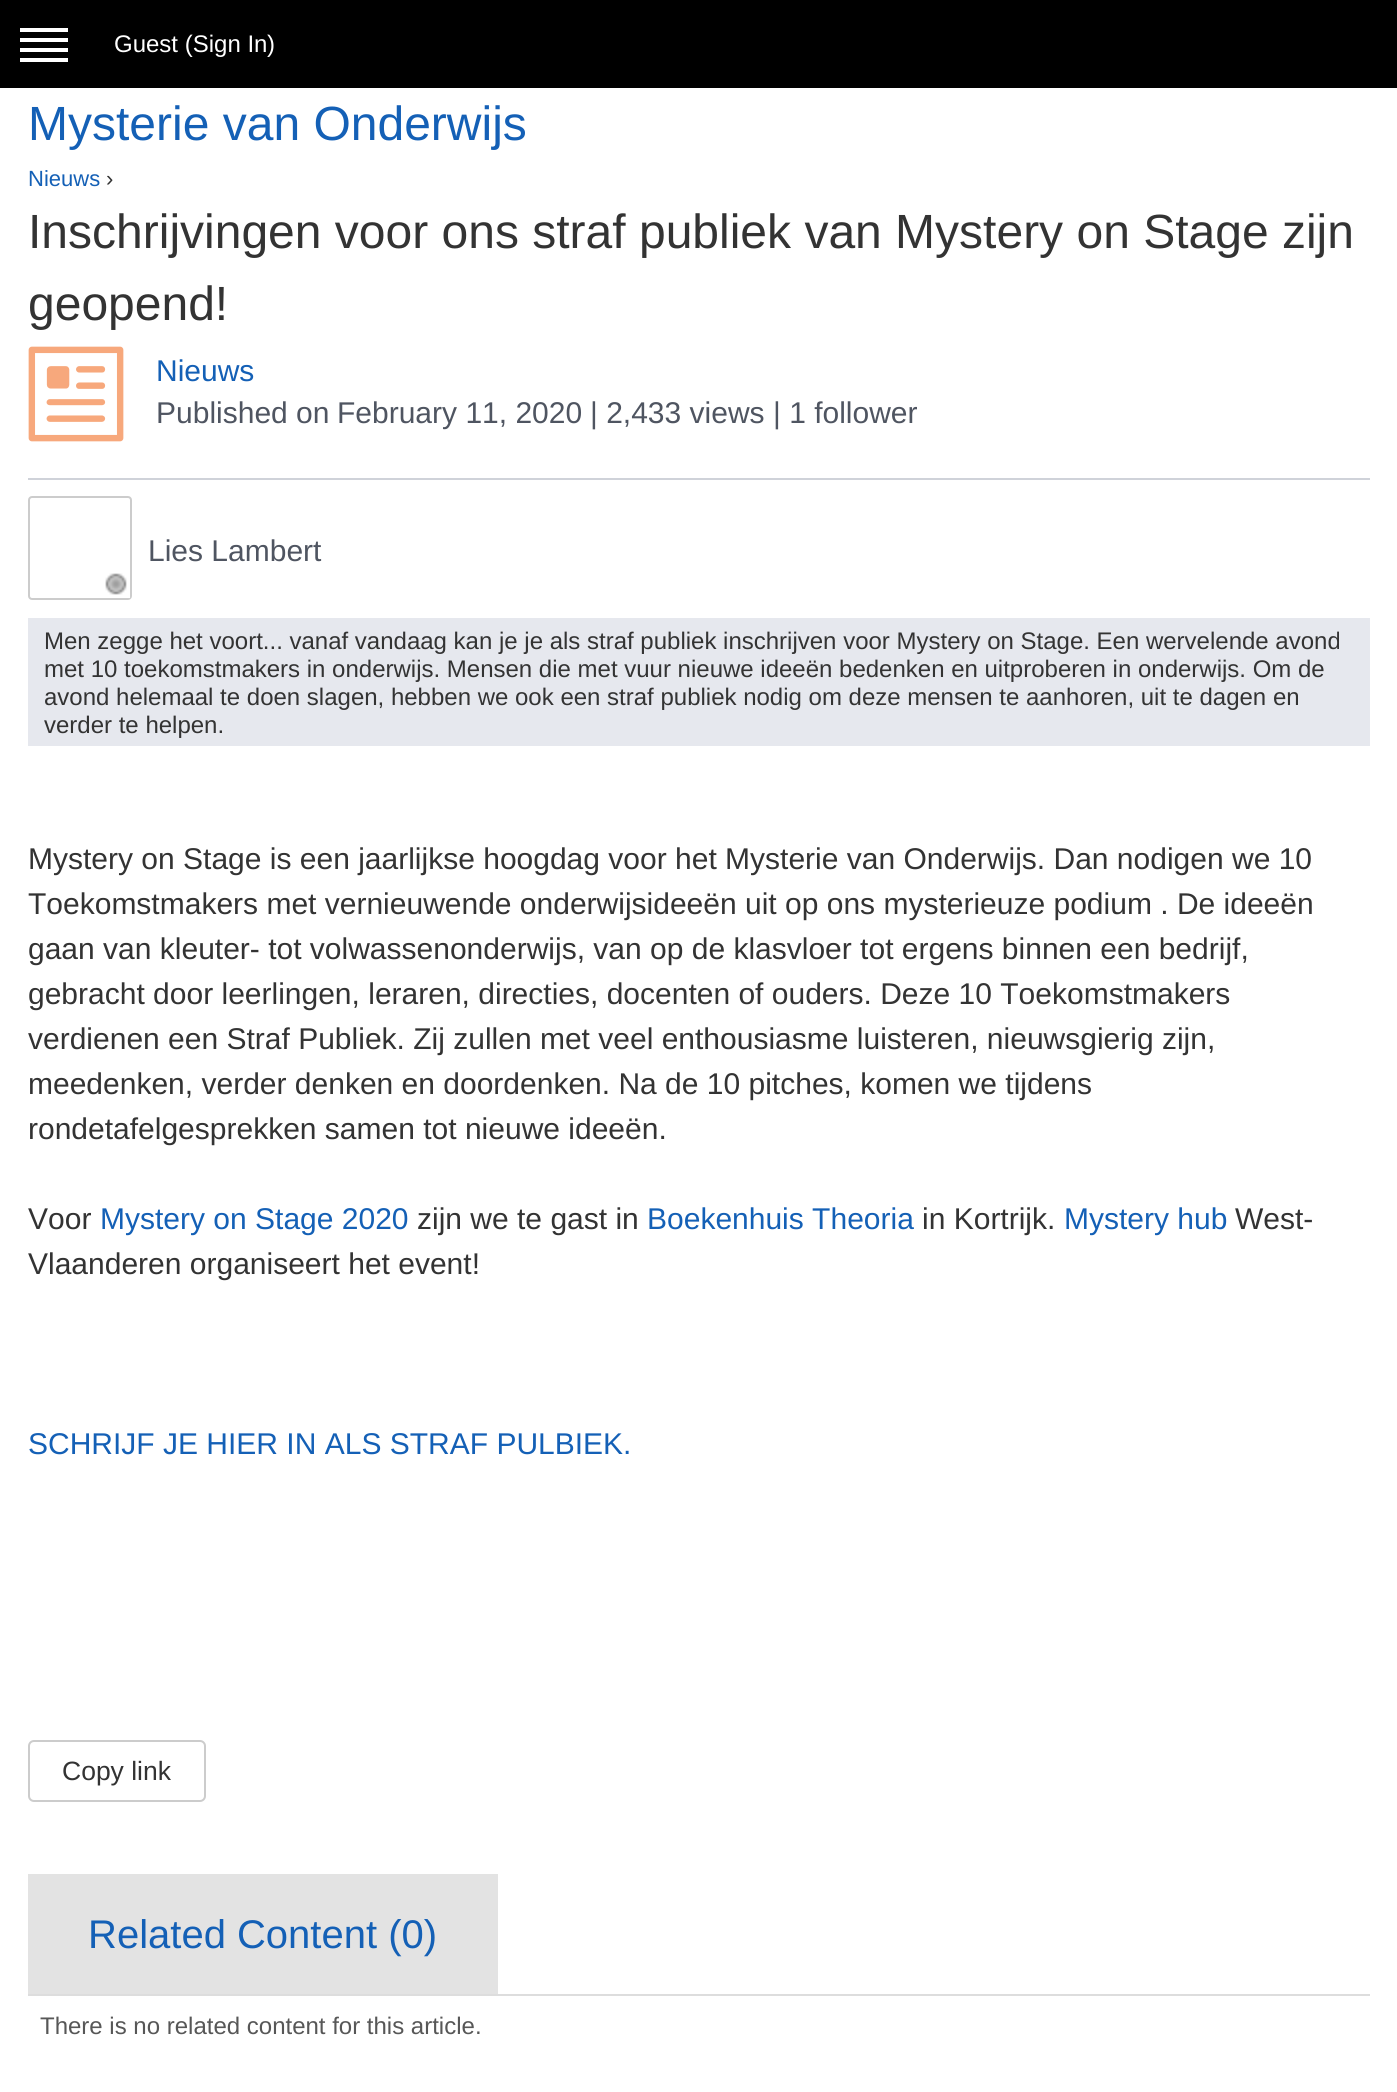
#include <cairo.h>
#include <math.h>
#include <stddef.h>

typedef struct { double x, y; const char *s; } line_t;
typedef struct { double x, y, w, h; unsigned color; } box_t;

static void ink(cairo_t *ctx, unsigned color) {
    cairo_set_source_rgb(ctx, (color >> 16) / 255.0, (color >> 8 & 255) / 255.0, (color & 255) / 255.0);
}

static void round_path(cairo_t *ctx, double x, double y, double w, double h, double r) {
    cairo_new_sub_path(ctx);
    cairo_arc(ctx, x + w - r, y + h - r, r, 0, M_PI / 2);
    cairo_arc(ctx, x + r, y + h - r, r, M_PI / 2, M_PI);
    cairo_arc(ctx, x + r, y + r, r, M_PI, 1.5 * M_PI);
    cairo_arc(ctx, x + w - r, y + r, r, 1.5 * M_PI, 2 * M_PI);
    cairo_close_path(ctx);
}

static void paste(cairo_t *ctx, const char *path, double x, double y, double w, double h) {
    cairo_surface_t *image = cairo_image_surface_create_from_png(path);
    cairo_save(ctx);
    cairo_set_source_surface(ctx, image, x, y);
    cairo_rectangle(ctx, x, y, w, h);
    cairo_fill(ctx);
    cairo_restore(ctx);
    cairo_surface_destroy(image);
}

int main(void) {
    cairo_surface_t *surface = cairo_image_surface_create(CAIRO_FORMAT_RGB24, 1397, 2092);
    cairo_t *ctx = cairo_create(surface);
    cairo_font_options_t *options = cairo_font_options_create();
    cairo_font_options_set_hint_metrics(options, CAIRO_HINT_METRICS_OFF);
    cairo_font_options_set_hint_style(options, CAIRO_HINT_STYLE_NONE);
    cairo_set_font_options(ctx, options);
    cairo_set_miter_limit(ctx, 4);
    ink(ctx, 0xFFFFFF);
    cairo_paint(ctx);
    {
        static const box_t items[] = {
            {0, 0, 1397, 88, 0x000000},
            {20, 28, 48, 4, 0xFFFFFF},
            {20, 38, 48, 4, 0xFFFFFF},
            {20, 48, 48, 4, 0xFFFFFF},
            {20, 58, 48, 4, 0xFFFFFF},
        };
        for (size_t i = 0; i < sizeof items / sizeof *items; i++) {
            ink(ctx, items[i].color);
            cairo_rectangle(ctx, items[i].x, items[i].y, items[i].w, items[i].h);
            cairo_fill(ctx);
        }
    }
    cairo_select_font_face(ctx, "Liberation Sans", CAIRO_FONT_SLANT_NORMAL, CAIRO_FONT_WEIGHT_NORMAL);
    cairo_set_font_size(ctx, 24);
    cairo_move_to(ctx, 114, 52);
    cairo_show_text(ctx, "Guest (Sign In");
    cairo_move_to(ctx, 267, 52);
    cairo_show_text(ctx, ")");
    cairo_set_font_size(ctx, 48);
    ink(ctx, 0x1460B6);
    cairo_move_to(ctx, 28, 140);
    cairo_show_text(ctx, "Mysterie van Onderwijs");
    cairo_set_font_size(ctx, 22);
    cairo_move_to(ctx, 28, 186);
    cairo_show_text(ctx, "Nieuws");
    ink(ctx, 0x333333);
    cairo_move_to(ctx, 106, 186);
    cairo_show_text(ctx, "›");
    cairo_set_font_size(ctx, 48);
    cairo_move_to(ctx, 28, 248);
    cairo_show_text(ctx, "Inschrijvingen voor ons straf publiek van Mystery on Stage zijn");
    cairo_move_to(ctx, 28, 320);
    cairo_show_text(ctx, "geopend!");
    ink(ctx, 0xCFD2D9);
    cairo_rectangle(ctx, 28, 478, 1342, 2);
    cairo_fill(ctx);
    paste(ctx, "media/1.png", 28, 346, 96, 96);
    cairo_set_font_size(ctx, 30);
    ink(ctx, 0x1460B6);
    cairo_move_to(ctx, 156, 381);
    cairo_show_text(ctx, "Nieuws");
    ink(ctx, 0x4F5561);
    {
        static const line_t items[] = {
            {156, 423, "Published"},
            {296, 423, "on"},
            {337, 423, "February 11, 2020"},
            {590, 423, "| 2,433 views"},
            {773, 423, "| 1 follower"},
        };
        for (size_t i = 0; i < sizeof items / sizeof *items; i++) {
            cairo_move_to(ctx, items[i].x, items[i].y);
            cairo_show_text(ctx, items[i].s);
        }
    }
    round_path(ctx, 29, 497, 102, 102, 3);
    ink(ctx, 0xCCCCCC);
    cairo_stroke(ctx);
    ink(ctx, 0xFFFFFF);
    cairo_new_path(ctx);
    cairo_move_to(ctx, 116, 570);
    cairo_line_to(ctx, 130, 570);
    cairo_line_to(ctx, 130, 598);
    cairo_line_to(ctx, 102, 598);
    cairo_line_to(ctx, 102, 584);
    cairo_curve_to(ctx, 102, 576.5, 108.5, 570, 116, 570);
    cairo_close_path(ctx);
    cairo_fill(ctx);
    paste(ctx, "media/2.png", 105, 573, 22, 22);
    ink(ctx, 0x4F5561);
    cairo_move_to(ctx, 148, 561);
    cairo_show_text(ctx, "Lies Lambert");
    ink(ctx, 0xE6E8EE);
    cairo_rectangle(ctx, 28, 618, 1342, 128);
    cairo_fill(ctx);
    cairo_set_font_size(ctx, 24);
    ink(ctx, 0x333333);
    {
        static const line_t items[] = {
            {44, 649, "Men zegge het voort... vanaf vandaag kan je je als straf publiek inschrijven voor Mystery on Stage. Een wervelende avond"},
            {44, 677, "met 10 toekomstmakers in onderwijs. Mensen die met vuur nieuwe ideeën bedenken en uitproberen in onderwijs. Om de"},
            {44, 705, "avond helemaal te doen slagen, hebben we ook een straf publiek nodig om deze mensen te aanhoren, uit te dagen en"},
            {44, 733, "verder te helpen."},
        };
        for (size_t i = 0; i < sizeof items / sizeof *items; i++) {
            cairo_move_to(ctx, items[i].x, items[i].y);
            cairo_show_text(ctx, items[i].s);
        }
    }
    cairo_set_font_size(ctx, 30);
    {
        static const line_t items[] = {
            {28, 869, "Mystery on Stage is een jaarlijkse hoogdag voor het Mysterie van Onderwijs. Dan nodigen we 10"},
            {28, 914, "Toekomstmakers met vernieuwende onderwijsideeën uit op ons mysterieuze podium . De ideeën"},
            {28, 959, "gaan van kleuter- tot volwassenonderwijs, van op de klasvloer tot ergens binnen een bedrijf,"},
            {28, 1004, "gebracht door leerlingen, leraren, directies, docenten of ouders. Deze 10 Toekomstmakers"},
            {28, 1049, "verdienen een Straf Publiek. Zij zullen met veel enthousiasme luisteren, nieuwsgierig zijn,"},
            {28, 1094, "meedenken, verder denken en doordenken. Na de 10 pitches, komen we tijdens"},
            {28, 1139, "rondetafelgesprekken samen tot nieuwe ideeën."},
            {28, 1229, "Voor"},
        };
        for (size_t i = 0; i < sizeof items / sizeof *items; i++) {
            cairo_move_to(ctx, items[i].x, items[i].y);
            cairo_show_text(ctx, items[i].s);
        }
    }
    ink(ctx, 0x1460B6);
    cairo_move_to(ctx, 100, 1229);
    cairo_show_text(ctx, "Mystery on Stage 2020");
    ink(ctx, 0x333333);
    cairo_move_to(ctx, 417, 1229);
    cairo_show_text(ctx, "zijn we te gast in");
    ink(ctx, 0x1460B6);
    cairo_move_to(ctx, 647, 1229);
    cairo_show_text(ctx, "Boekenhuis Theoria");
    ink(ctx, 0x333333);
    cairo_move_to(ctx, 922, 1229);
    cairo_show_text(ctx, "in Kortrijk.");
    ink(ctx, 0x1460B6);
    cairo_move_to(ctx, 1064, 1229);
    cairo_show_text(ctx, "Mystery hub");
    ink(ctx, 0x333333);
    cairo_move_to(ctx, 1235, 1229);
    cairo_show_text(ctx, "West-");
    cairo_move_to(ctx, 28, 1274);
    cairo_show_text(ctx, "Vlaanderen organiseert het event!");
    ink(ctx, 0x1460B6);
    cairo_move_to(ctx, 28, 1454);
    cairo_show_text(ctx, "SCHRIJF JE HIER IN ALS STRAF PULBIEK.");
    round_path(ctx, 29, 1741, 176, 60, 5);
    ink(ctx, 0xCCCCCC);
    cairo_stroke(ctx);
    cairo_set_font_size(ctx, 26.5);
    ink(ctx, 0x333333);
    cairo_move_to(ctx, 62, 1780);
    cairo_show_text(ctx, "Copy link");
    ink(ctx, 0xDDDDDD);
    cairo_rectangle(ctx, 28, 1994, 1342, 2);
    cairo_fill(ctx);
    ink(ctx, 0xE3E3E3);
    cairo_rectangle(ctx, 28, 1874, 470, 120);
    cairo_fill(ctx);
    cairo_set_font_size(ctx, 40);
    ink(ctx, 0x1460B6);
    cairo_move_to(ctx, 88, 1948);
    cairo_show_text(ctx, "Related Content (0)");
    cairo_set_font_size(ctx, 24);
    ink(ctx, 0x575757);
    cairo_move_to(ctx, 40, 2034);
    cairo_show_text(ctx, "There is no related content for this article.");
    cairo_surface_write_to_png(surface, "image.png");
    cairo_font_options_destroy(options);
    cairo_destroy(ctx);
    cairo_surface_destroy(surface);
    return 0;
}
